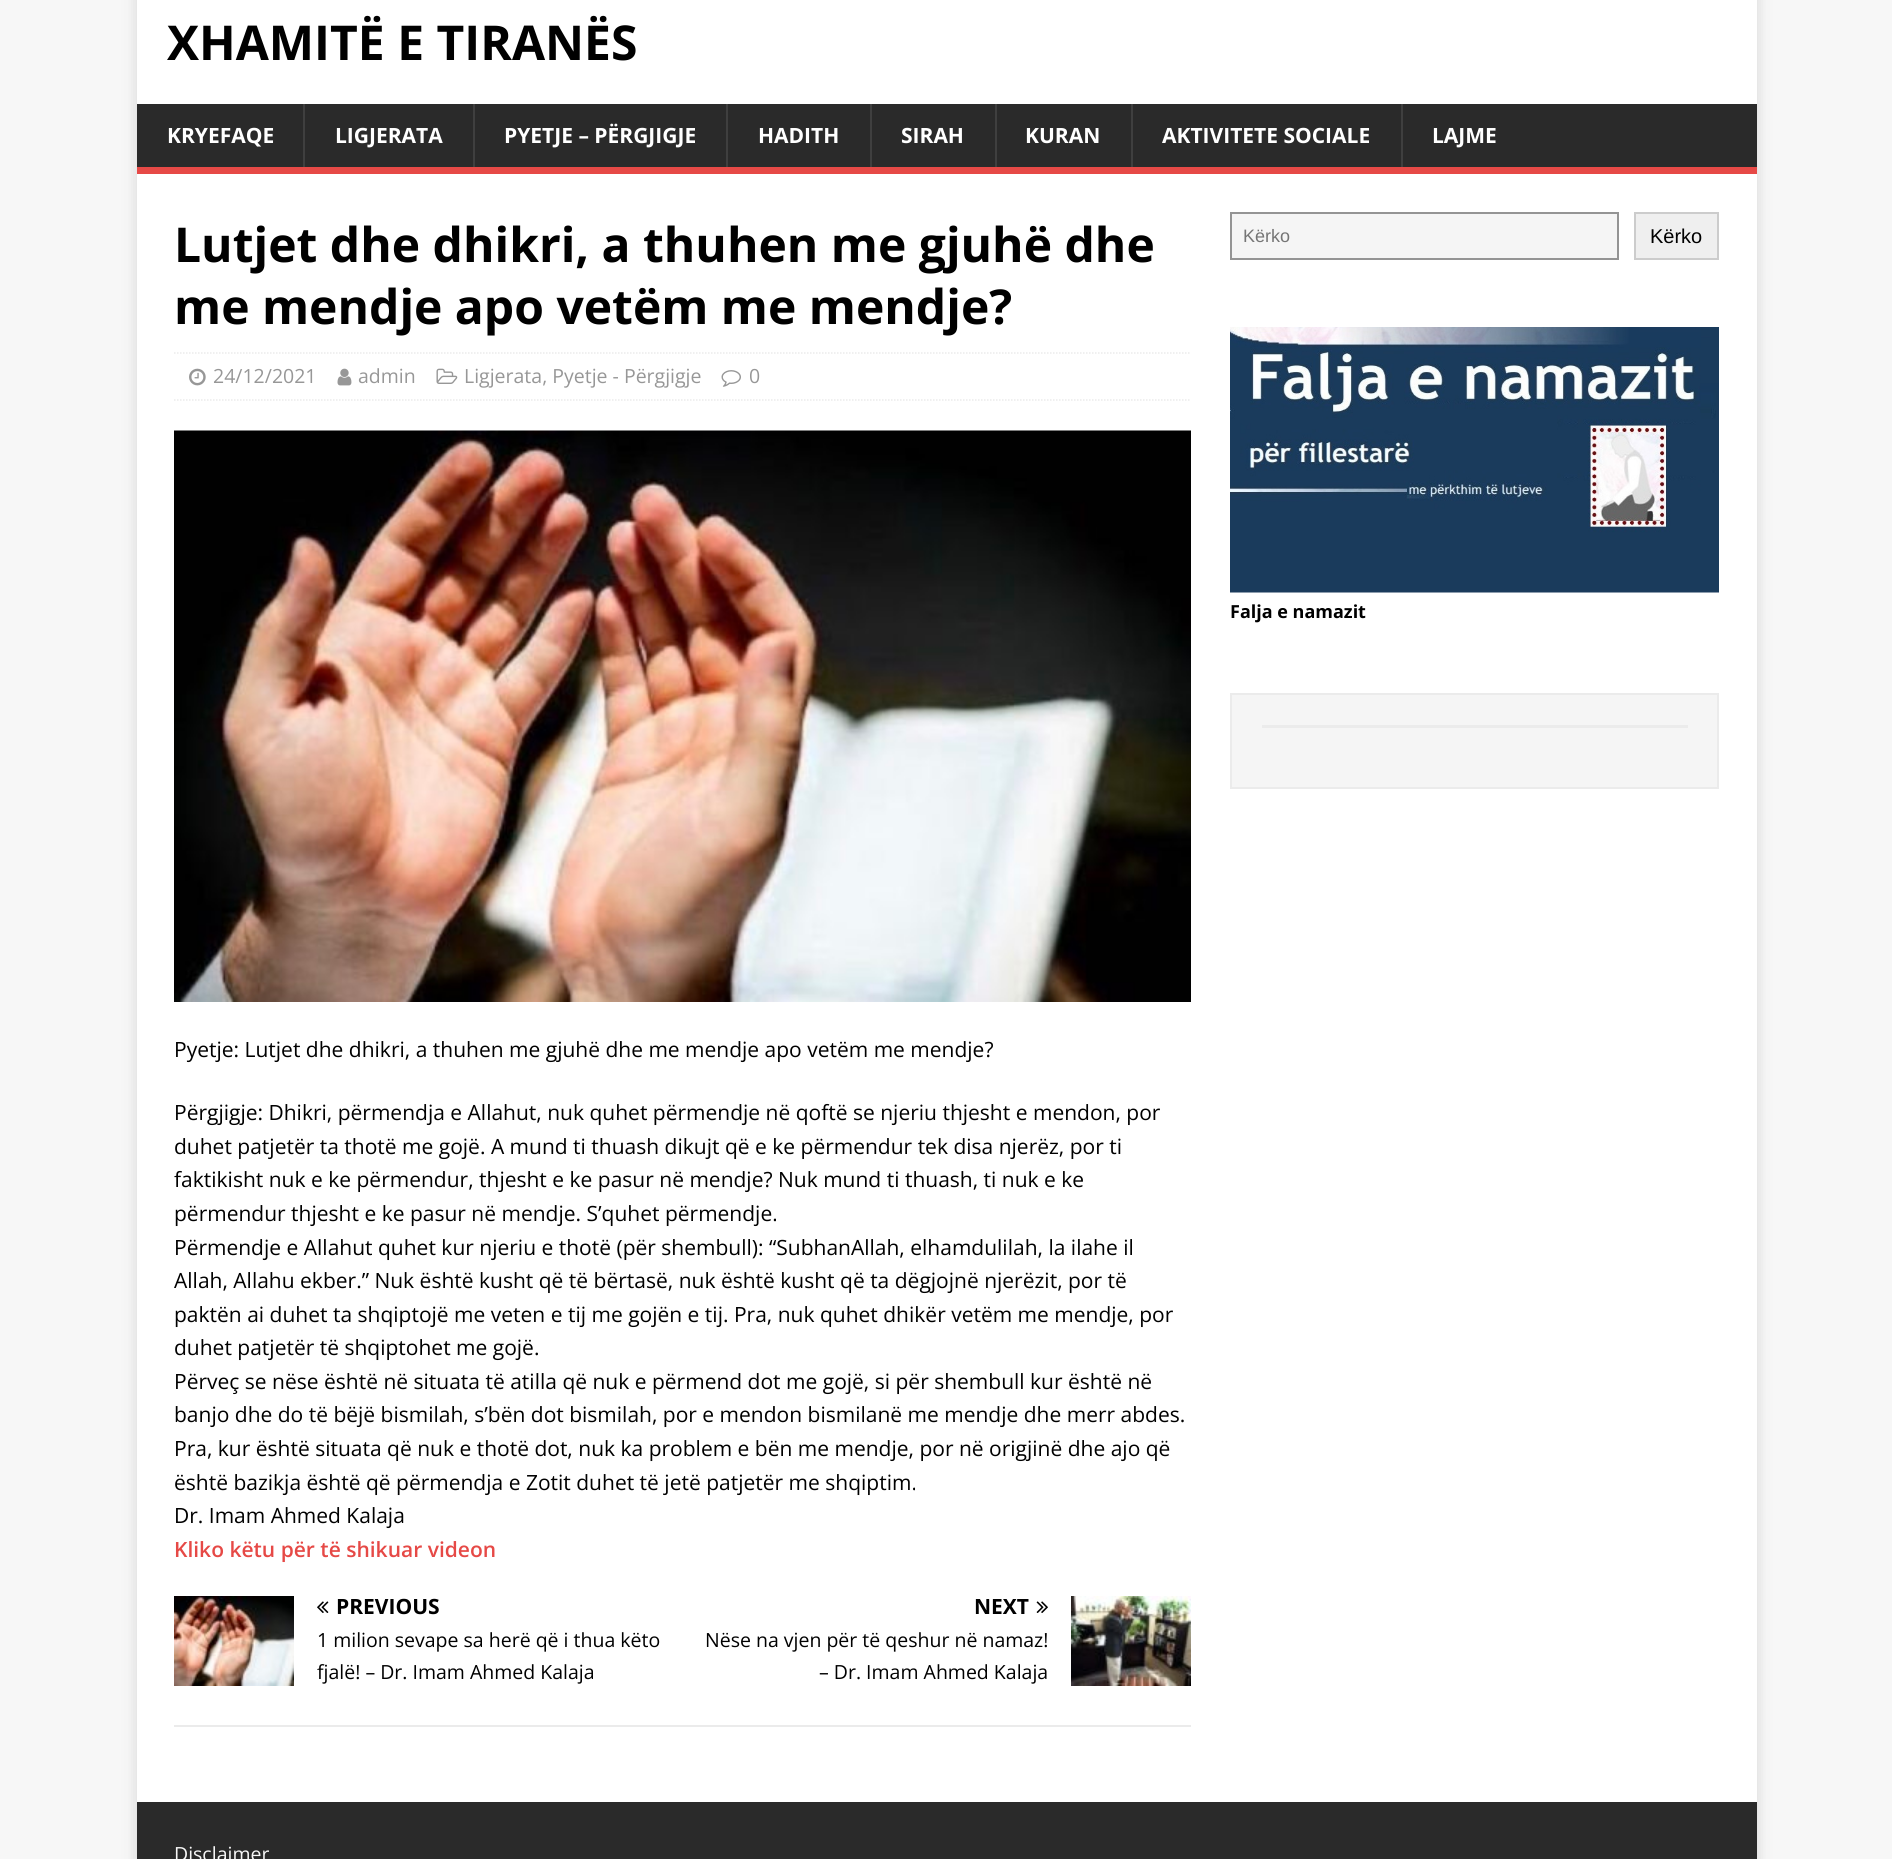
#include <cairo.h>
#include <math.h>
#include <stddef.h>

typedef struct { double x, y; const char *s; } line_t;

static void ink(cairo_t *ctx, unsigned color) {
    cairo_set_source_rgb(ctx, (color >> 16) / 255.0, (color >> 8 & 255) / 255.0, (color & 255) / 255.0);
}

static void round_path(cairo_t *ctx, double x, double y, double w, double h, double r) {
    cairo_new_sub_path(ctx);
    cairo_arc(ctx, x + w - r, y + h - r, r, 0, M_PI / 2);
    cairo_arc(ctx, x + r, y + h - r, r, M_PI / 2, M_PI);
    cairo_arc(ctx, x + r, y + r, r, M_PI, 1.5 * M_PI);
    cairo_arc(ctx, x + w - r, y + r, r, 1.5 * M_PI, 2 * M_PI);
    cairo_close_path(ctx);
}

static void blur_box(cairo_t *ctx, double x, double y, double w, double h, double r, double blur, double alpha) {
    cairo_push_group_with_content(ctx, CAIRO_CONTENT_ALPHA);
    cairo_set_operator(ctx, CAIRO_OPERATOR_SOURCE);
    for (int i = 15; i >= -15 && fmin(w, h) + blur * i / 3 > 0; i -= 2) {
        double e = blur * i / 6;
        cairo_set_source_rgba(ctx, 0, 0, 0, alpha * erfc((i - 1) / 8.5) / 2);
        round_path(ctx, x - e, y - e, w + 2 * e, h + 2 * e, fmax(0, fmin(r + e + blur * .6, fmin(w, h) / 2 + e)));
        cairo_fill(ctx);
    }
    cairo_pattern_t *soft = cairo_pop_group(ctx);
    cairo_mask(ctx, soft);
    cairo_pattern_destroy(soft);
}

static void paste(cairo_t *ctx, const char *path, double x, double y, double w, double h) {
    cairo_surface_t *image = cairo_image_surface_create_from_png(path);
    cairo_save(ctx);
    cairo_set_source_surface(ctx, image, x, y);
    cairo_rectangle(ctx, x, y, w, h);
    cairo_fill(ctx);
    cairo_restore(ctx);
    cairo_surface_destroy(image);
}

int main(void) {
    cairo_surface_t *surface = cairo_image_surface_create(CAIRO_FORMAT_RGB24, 1892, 1859);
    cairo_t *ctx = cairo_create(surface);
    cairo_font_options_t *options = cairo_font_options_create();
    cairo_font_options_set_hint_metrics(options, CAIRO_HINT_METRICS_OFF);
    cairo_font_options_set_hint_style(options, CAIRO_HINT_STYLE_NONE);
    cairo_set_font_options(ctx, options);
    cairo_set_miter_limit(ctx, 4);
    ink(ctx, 0xF7F7F7);
    cairo_paint(ctx);
    ink(ctx, 0x323232);
    blur_box(ctx, 137, -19, 1620, 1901, 0, 7.5, 0.17);
    ink(ctx, 0xFFFFFF);
    cairo_rectangle(ctx, 137, 0, 1620, 104);
    cairo_fill(ctx);
    cairo_select_font_face(ctx, "Open Sans", CAIRO_FONT_SLANT_NORMAL, CAIRO_FONT_WEIGHT_BOLD);
    cairo_set_font_size(ctx, 48);
    ink(ctx, 0x000000);
    cairo_move_to(ctx, 167, 60);
    cairo_show_text(ctx, "XHAMITË E TIRANËS");
    ink(ctx, 0x2A2A2A);
    cairo_rectangle(ctx, 137, 104, 1620, 63);
    cairo_fill(ctx);
    ink(ctx, 0xE64946);
    cairo_rectangle(ctx, 137, 167, 1620, 7);
    cairo_fill(ctx);
    cairo_set_font_size(ctx, 21);
    ink(ctx, 0xFFFFFF);
    cairo_move_to(ctx, 167, 143);
    cairo_show_text(ctx, "KRYEFAQE");
    ink(ctx, 0x3F3F3F);
    cairo_rectangle(ctx, 303, 104, 2, 63);
    cairo_fill(ctx);
    ink(ctx, 0xFFFFFF);
    cairo_move_to(ctx, 335, 143);
    cairo_show_text(ctx, "LIGJERATA");
    ink(ctx, 0x3F3F3F);
    cairo_rectangle(ctx, 473, 104, 2, 63);
    cairo_fill(ctx);
    ink(ctx, 0xFFFFFF);
    cairo_move_to(ctx, 504, 143);
    cairo_show_text(ctx, "PYETJE – PËRGJIGJE");
    ink(ctx, 0x3F3F3F);
    cairo_rectangle(ctx, 726, 104, 2, 63);
    cairo_fill(ctx);
    ink(ctx, 0xFFFFFF);
    cairo_move_to(ctx, 758, 143);
    cairo_show_text(ctx, "HADITH");
    ink(ctx, 0x3F3F3F);
    cairo_rectangle(ctx, 870, 104, 2, 63);
    cairo_fill(ctx);
    ink(ctx, 0xFFFFFF);
    cairo_move_to(ctx, 901, 143);
    cairo_show_text(ctx, "SIRAH");
    ink(ctx, 0x3F3F3F);
    cairo_rectangle(ctx, 995, 104, 2, 63);
    cairo_fill(ctx);
    ink(ctx, 0xFFFFFF);
    cairo_move_to(ctx, 1025, 143);
    cairo_show_text(ctx, "KURAN");
    ink(ctx, 0x3F3F3F);
    cairo_rectangle(ctx, 1131, 104, 2, 63);
    cairo_fill(ctx);
    ink(ctx, 0xFFFFFF);
    cairo_move_to(ctx, 1162, 143);
    cairo_show_text(ctx, "AKTIVITETE SOCIALE");
    ink(ctx, 0x3F3F3F);
    cairo_rectangle(ctx, 1401, 104, 2, 63);
    cairo_fill(ctx);
    ink(ctx, 0xFFFFFF);
    cairo_move_to(ctx, 1432, 143);
    cairo_show_text(ctx, "LAJME");
    cairo_rectangle(ctx, 137, 174, 1620, 1628);
    cairo_fill(ctx);
    cairo_set_font_size(ctx, 48);
    ink(ctx, 0x000000);
    cairo_move_to(ctx, 174, 262);
    cairo_show_text(ctx, "Lutjet dhe dhikri, a thuhen me gjuhë dhe");
    cairo_move_to(ctx, 174, 324);
    cairo_show_text(ctx, "me mendje apo vetëm me mendje?");
    cairo_new_path(ctx);
    cairo_move_to(ctx, 174, 353);
    cairo_line_to(ctx, 1191, 353);
    ink(ctx, 0xEBEBEB);
    cairo_set_line_width(ctx, 1.5);
    cairo_set_dash(ctx, (double[]){1.5, 1.5}, 2, 0);
    cairo_stroke(ctx);
    cairo_new_path(ctx);
    cairo_move_to(ctx, 174, 400);
    cairo_line_to(ctx, 1191, 400);
    cairo_stroke(ctx);
    paste(ctx, "media/1.png", 189, 368, 17, 18);
    cairo_select_font_face(ctx, "Open Sans", CAIRO_FONT_SLANT_NORMAL, CAIRO_FONT_WEIGHT_NORMAL);
    cairo_set_font_size(ctx, 19.5);
    ink(ctx, 0x979797);
    cairo_move_to(ctx, 213, 383);
    cairo_show_text(ctx, "24/12/2021");
    paste(ctx, "media/2.png", 337, 368, 15, 18);
    cairo_move_to(ctx, 358, 383);
    cairo_show_text(ctx, "admin");
    paste(ctx, "media/3.png", 436, 368, 22, 16);
    cairo_move_to(ctx, 464, 383);
    cairo_show_text(ctx, "Ligjerata, Pyetje - Përgjigje");
    paste(ctx, "media/4.png", 721, 370, 20, 17);
    cairo_move_to(ctx, 749, 383);
    cairo_show_text(ctx, "0");
    paste(ctx, "media/5.png", 174, 430, 1017, 572);
    cairo_set_font_size(ctx, 21);
    ink(ctx, 0x000000);
    {
        static const line_t items[] = {
            {174, 1057, "Pyetje: Lutjet dhe dhikri, a thuhen me gjuhë dhe me mendje apo vetëm me mendje?"},
            {174, 1120, "Përgjigje: Dhikri, përmendja e Allahut, nuk quhet përmendje në qoftë se njeriu thjesht e mendon, por"},
            {174, 1154, "duhet patjetër ta thotë me gojë. A mund ti thuash dikujt që e ke përmendur tek disa njerëz, por ti"},
            {174, 1187, "faktikisht nuk e ke përmendur, thjesht e ke pasur në mendje? Nuk mund ti thuash, ti nuk e ke"},
            {174, 1221, "përmendur thjesht e ke pasur në mendje. S’quhet përmendje."},
            {174, 1255, "Përmendje e Allahut quhet kur njeriu e thotë (për shembull): “SubhanAllah, elhamdulilah, la ilahe il"},
            {174, 1288, "Allah, Allahu ekber.” Nuk është kusht që të bërtasë, nuk është kusht që ta dëgjojnë njerëzit, por të"},
            {174, 1322, "paktën ai duhet ta shqiptojë me veten e tij me gojën e tij. Pra, nuk quhet dhikër vetëm me mendje, por"},
            {174, 1355, "duhet patjetër të shqiptohet me gojë."},
            {174, 1389, "Përveç se nëse është në situata të atilla që nuk e përmend dot me gojë, si për shembull kur është në"},
            {174, 1422, "banjo dhe do të bëjë bismilah, s’bën dot bismilah, por e mendon bismilanë me mendje dhe merr abdes."},
            {174, 1456, "Pra, kur është situata që nuk e thotë dot, nuk ka problem e bën me mendje, por në origjinë dhe ajo që"},
            {174, 1490, "është bazikja është që përmendja e Zotit duhet të jetë patjetër me shqiptim."},
            {174, 1523, "Dr. Imam Ahmed Kalaja"},
        };
        for (size_t i = 0; i < sizeof items / sizeof *items; i++) {
            cairo_move_to(ctx, items[i].x, items[i].y);
            cairo_show_text(ctx, items[i].s);
        }
    }
    cairo_select_font_face(ctx, "Open Sans SemiBold", CAIRO_FONT_SLANT_NORMAL, CAIRO_FONT_WEIGHT_NORMAL);
    ink(ctx, 0xE64946);
    cairo_move_to(ctx, 174, 1557);
    cairo_show_text(ctx, "Kliko këtu për të shikuar videon");
    ink(ctx, 0xEBEBEB);
    cairo_rectangle(ctx, 174, 1725, 1017, 2);
    cairo_fill(ctx);
    paste(ctx, "media/6.png", 174, 1596, 120, 90);
    paste(ctx, "media/7.png", 317, 1601, 12, 12);
    cairo_select_font_face(ctx, "Open Sans", CAIRO_FONT_SLANT_NORMAL, CAIRO_FONT_WEIGHT_BOLD);
    ink(ctx, 0x000000);
    cairo_move_to(ctx, 336, 1614);
    cairo_show_text(ctx, "PREVIOUS");
    cairo_select_font_face(ctx, "Open Sans", CAIRO_FONT_SLANT_NORMAL, CAIRO_FONT_WEIGHT_NORMAL);
    cairo_set_font_size(ctx, 19.5);
    cairo_move_to(ctx, 317, 1647);
    cairo_show_text(ctx, "1 milion sevape sa herë që i thua këto");
    cairo_move_to(ctx, 317, 1679);
    cairo_show_text(ctx, "fjalë! – Dr. Imam Ahmed Kalaja");
    cairo_select_font_face(ctx, "Open Sans", CAIRO_FONT_SLANT_NORMAL, CAIRO_FONT_WEIGHT_BOLD);
    cairo_set_font_size(ctx, 21);
    cairo_move_to(ctx, 974, 1614);
    cairo_show_text(ctx, "NEXT");
    paste(ctx, "media/8.png", 1036, 1601, 12, 12);
    paste(ctx, "media/9.png", 1071, 1596, 120, 90);
    cairo_select_font_face(ctx, "Open Sans", CAIRO_FONT_SLANT_NORMAL, CAIRO_FONT_WEIGHT_NORMAL);
    cairo_set_font_size(ctx, 19.5);
    cairo_move_to(ctx, 705, 1647);
    cairo_show_text(ctx, "Nëse na vjen për të qeshur në namaz!");
    cairo_move_to(ctx, 819, 1679);
    cairo_show_text(ctx, "– Dr. Imam Ahmed Kalaja");
    ink(ctx, 0xF5F5F5);
    cairo_rectangle(ctx, 1231, 213, 387, 46);
    cairo_fill_preserve(ctx);
    ink(ctx, 0x949494);
    cairo_set_line_width(ctx, 2);
    cairo_set_dash(ctx, NULL, 0, 0);
    cairo_stroke(ctx);
    cairo_select_font_face(ctx, "Liberation Sans", CAIRO_FONT_SLANT_NORMAL, CAIRO_FONT_WEIGHT_NORMAL);
    cairo_set_font_size(ctx, 18);
    ink(ctx, 0x757575);
    cairo_move_to(ctx, 1243, 242);
    cairo_show_text(ctx, "Kërko");
    ink(ctx, 0xEFEFEF);
    cairo_rectangle(ctx, 1635, 213, 83, 46);
    cairo_fill_preserve(ctx);
    ink(ctx, 0xCCCCCC);
    cairo_stroke(ctx);
    cairo_set_font_size(ctx, 20);
    ink(ctx, 0x000000);
    cairo_move_to(ctx, 1650, 243);
    cairo_show_text(ctx, "Kërko");
    paste(ctx, "media/10.png", 1230, 327, 489, 266);
    cairo_select_font_face(ctx, "Open Sans", CAIRO_FONT_SLANT_NORMAL, CAIRO_FONT_WEIGHT_BOLD);
    cairo_set_font_size(ctx, 18);
    cairo_move_to(ctx, 1230, 618);
    cairo_show_text(ctx, "Falja e namazit");
    ink(ctx, 0xF5F5F5);
    cairo_rectangle(ctx, 1231, 694, 487, 94);
    cairo_fill_preserve(ctx);
    ink(ctx, 0xEBEBEB);
    cairo_stroke(ctx);
    cairo_rectangle(ctx, 1262, 725, 426, 3);
    cairo_fill(ctx);
    ink(ctx, 0x2A2A2A);
    cairo_rectangle(ctx, 137, 1802, 1620, 57);
    cairo_fill(ctx);
    cairo_select_font_face(ctx, "Open Sans", CAIRO_FONT_SLANT_NORMAL, CAIRO_FONT_WEIGHT_NORMAL);
    cairo_set_font_size(ctx, 19.5);
    ink(ctx, 0xF7F7F7);
    cairo_move_to(ctx, 174, 1861);
    cairo_show_text(ctx, "Disclaimer");
    cairo_surface_write_to_png(surface, "image.png");
    cairo_font_options_destroy(options);
    cairo_destroy(ctx);
    cairo_surface_destroy(surface);
    return 0;
}
